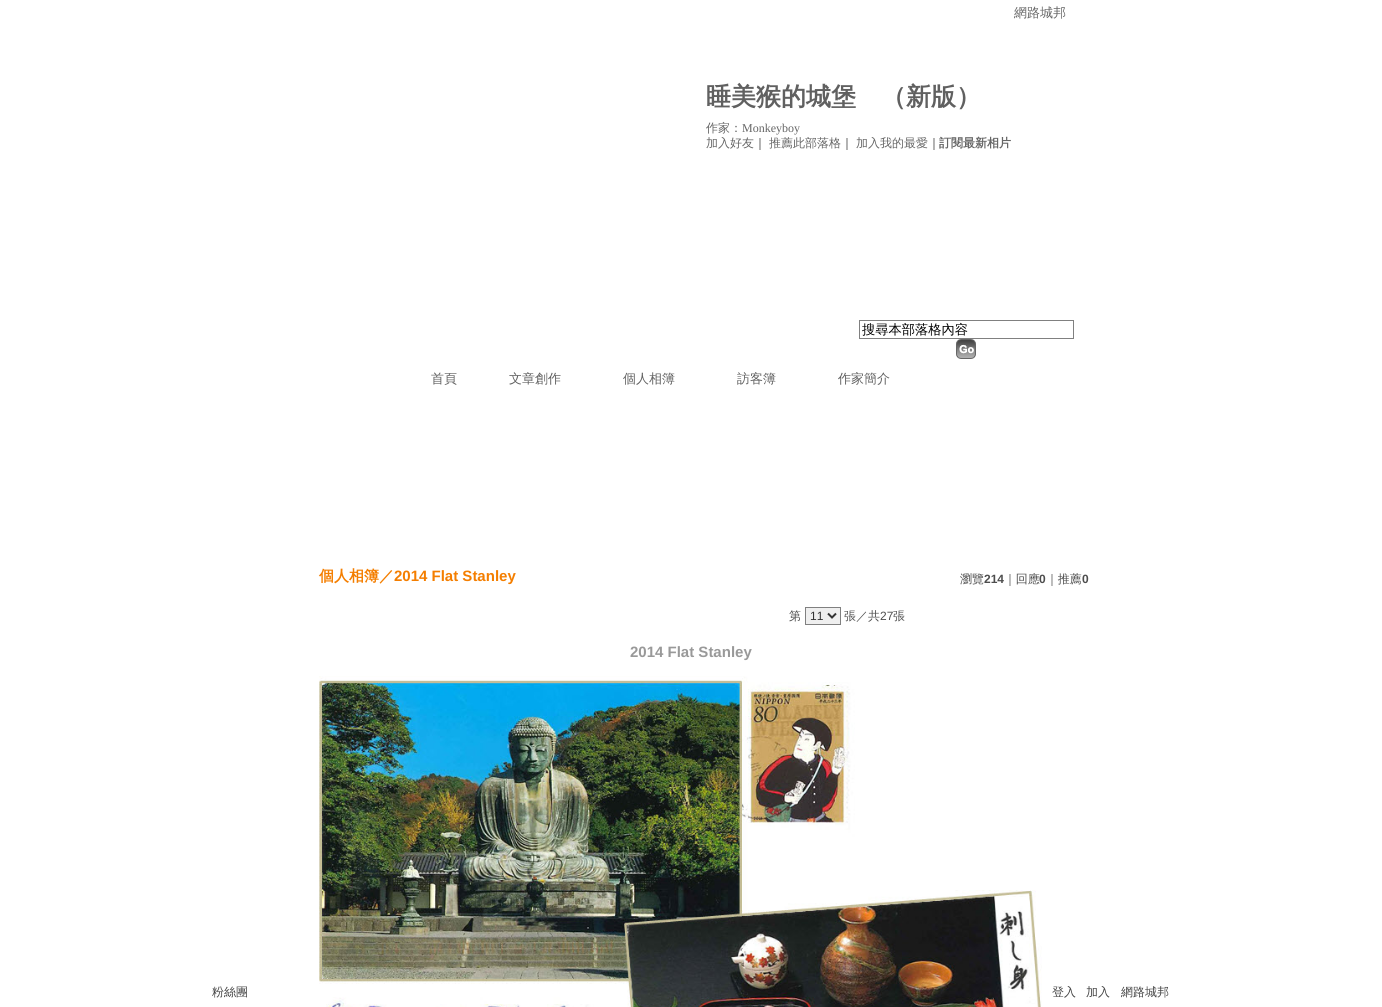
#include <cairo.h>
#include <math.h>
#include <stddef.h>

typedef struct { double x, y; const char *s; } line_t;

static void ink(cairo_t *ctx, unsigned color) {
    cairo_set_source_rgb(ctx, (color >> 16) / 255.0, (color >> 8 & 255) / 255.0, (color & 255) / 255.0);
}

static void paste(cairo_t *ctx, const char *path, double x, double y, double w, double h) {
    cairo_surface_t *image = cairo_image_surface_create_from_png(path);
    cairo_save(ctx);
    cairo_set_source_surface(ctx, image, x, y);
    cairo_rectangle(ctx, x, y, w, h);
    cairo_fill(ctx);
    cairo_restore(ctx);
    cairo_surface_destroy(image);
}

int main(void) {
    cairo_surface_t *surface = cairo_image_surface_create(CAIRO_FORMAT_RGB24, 1382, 1007);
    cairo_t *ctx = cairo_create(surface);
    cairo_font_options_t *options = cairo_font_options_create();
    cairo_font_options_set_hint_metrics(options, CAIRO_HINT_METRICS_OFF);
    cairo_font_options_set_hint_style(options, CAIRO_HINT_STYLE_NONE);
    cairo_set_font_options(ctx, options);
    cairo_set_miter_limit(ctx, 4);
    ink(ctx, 0xFFFFFF);
    cairo_paint(ctx);
    cairo_select_font_face(ctx, "WenQuanYi Zen Hei Medium", CAIRO_FONT_SLANT_NORMAL, CAIRO_FONT_WEIGHT_NORMAL);
    cairo_set_font_size(ctx, 13);
    ink(ctx, 0x666666);
    cairo_move_to(ctx, 1014, 17);
    cairo_show_text(ctx, "網路城邦");
    cairo_select_font_face(ctx, "WenQuanYi Zen Hei", CAIRO_FONT_SLANT_NORMAL, CAIRO_FONT_WEIGHT_BOLD);
    cairo_set_font_size(ctx, 25);
    ink(ctx, 0x606060);
    cairo_move_to(ctx, 706, 105);
    cairo_show_text(ctx, "睡美猴的城堡");
    cairo_move_to(ctx, 881, 105);
    cairo_show_text(ctx, "（新版）");
    cairo_select_font_face(ctx, "WenQuanYi Zen Hei Medium", CAIRO_FONT_SLANT_NORMAL, CAIRO_FONT_WEIGHT_NORMAL);
    cairo_set_font_size(ctx, 12);
    ink(ctx, 0x666666);
    cairo_move_to(ctx, 706, 132);
    cairo_show_text(ctx, "作家：");
    cairo_select_font_face(ctx, "Liberation Serif", CAIRO_FONT_SLANT_NORMAL, CAIRO_FONT_WEIGHT_NORMAL);
    cairo_move_to(ctx, 742, 132);
    cairo_show_text(ctx, "Monkeyboy");
    cairo_select_font_face(ctx, "WenQuanYi Zen Hei Medium", CAIRO_FONT_SLANT_NORMAL, CAIRO_FONT_WEIGHT_NORMAL);
    cairo_move_to(ctx, 706, 147);
    cairo_show_text(ctx, "加入好友");
    ink(ctx, 0x333333);
    cairo_move_to(ctx, 754, 147);
    cairo_show_text(ctx, "｜");
    ink(ctx, 0x666666);
    cairo_move_to(ctx, 769, 147);
    cairo_show_text(ctx, "推薦此部落格");
    ink(ctx, 0x333333);
    cairo_move_to(ctx, 841, 147);
    cairo_show_text(ctx, "｜");
    ink(ctx, 0x666666);
    cairo_move_to(ctx, 856, 147);
    cairo_show_text(ctx, "加入我的最愛");
    ink(ctx, 0x333333);
    cairo_move_to(ctx, 928, 147);
    cairo_show_text(ctx, "｜");
    cairo_select_font_face(ctx, "WenQuanYi Zen Hei", CAIRO_FONT_SLANT_NORMAL, CAIRO_FONT_WEIGHT_BOLD);
    ink(ctx, 0x666666);
    cairo_move_to(ctx, 939, 147);
    cairo_show_text(ctx, "訂閱最新相片");
    cairo_rectangle(ctx, 859.5, 320.5, 214, 18);
    ink(ctx, 0x808080);
    cairo_set_line_width(ctx, 1);
    cairo_stroke(ctx);
    cairo_select_font_face(ctx, "WenQuanYi Zen Hei Medium", CAIRO_FONT_SLANT_NORMAL, CAIRO_FONT_WEIGHT_NORMAL);
    cairo_set_font_size(ctx, 13.25);
    ink(ctx, 0x000000);
    cairo_move_to(ctx, 862, 334);
    cairo_show_text(ctx, "搜尋本部落格內容");
    paste(ctx, "media/1.png", 956, 339, 20, 20);
    cairo_set_font_size(ctx, 13);
    ink(ctx, 0x606060);
    {
        static const line_t items[] = {
            {431, 383, "首頁"},
            {509, 383, "文章創作"},
            {623, 383, "個人相簿"},
            {737, 383, "訪客簿"},
            {838, 383, "作家簡介"},
        };
        for (size_t i = 0; i < sizeof items / sizeof *items; i++) {
            cairo_move_to(ctx, items[i].x, items[i].y);
            cairo_show_text(ctx, items[i].s);
        }
    }
    cairo_select_font_face(ctx, "WenQuanYi Zen Hei", CAIRO_FONT_SLANT_NORMAL, CAIRO_FONT_WEIGHT_BOLD);
    cairo_set_font_size(ctx, 15);
    ink(ctx, 0xF47E00);
    cairo_move_to(ctx, 319, 581);
    cairo_show_text(ctx, "個人相簿／");
    cairo_select_font_face(ctx, "Liberation Sans", CAIRO_FONT_SLANT_NORMAL, CAIRO_FONT_WEIGHT_BOLD);
    cairo_move_to(ctx, 394, 581);
    cairo_show_text(ctx, "2014 Flat Stanley");
    cairo_select_font_face(ctx, "WenQuanYi Zen Hei Medium", CAIRO_FONT_SLANT_NORMAL, CAIRO_FONT_WEIGHT_NORMAL);
    cairo_set_font_size(ctx, 12);
    ink(ctx, 0x4D4D4D);
    cairo_move_to(ctx, 960, 583);
    cairo_show_text(ctx, "瀏覽");
    cairo_select_font_face(ctx, "Liberation Sans", CAIRO_FONT_SLANT_NORMAL, CAIRO_FONT_WEIGHT_BOLD);
    cairo_move_to(ctx, 984, 583);
    cairo_show_text(ctx, "214");
    cairo_select_font_face(ctx, "WenQuanYi Zen Hei Medium", CAIRO_FONT_SLANT_NORMAL, CAIRO_FONT_WEIGHT_NORMAL);
    cairo_move_to(ctx, 1004, 583);
    cairo_show_text(ctx, "｜回應");
    cairo_select_font_face(ctx, "Liberation Sans", CAIRO_FONT_SLANT_NORMAL, CAIRO_FONT_WEIGHT_BOLD);
    cairo_move_to(ctx, 1039, 583);
    cairo_show_text(ctx, "0");
    cairo_select_font_face(ctx, "WenQuanYi Zen Hei Medium", CAIRO_FONT_SLANT_NORMAL, CAIRO_FONT_WEIGHT_NORMAL);
    cairo_move_to(ctx, 1046, 583);
    cairo_show_text(ctx, "｜推薦");
    cairo_select_font_face(ctx, "Liberation Sans", CAIRO_FONT_SLANT_NORMAL, CAIRO_FONT_WEIGHT_BOLD);
    cairo_move_to(ctx, 1082, 583);
    cairo_show_text(ctx, "0");
    cairo_select_font_face(ctx, "WenQuanYi Zen Hei Medium", CAIRO_FONT_SLANT_NORMAL, CAIRO_FONT_WEIGHT_NORMAL);
    cairo_move_to(ctx, 789, 620);
    cairo_show_text(ctx, "第");
    ink(ctx, 0xEFEFEF);
    cairo_rectangle(ctx, 805.5, 607.5, 35, 17);
    cairo_fill_preserve(ctx);
    ink(ctx, 0x808080);
    cairo_stroke(ctx);
    cairo_new_path(ctx);
    cairo_move_to(ctx, 828, 613.5);
    cairo_line_to(ctx, 832, 617.5);
    cairo_line_to(ctx, 836, 613.5);
    ink(ctx, 0x333333);
    cairo_set_line_width(ctx, 2);
    cairo_stroke(ctx);
    cairo_select_font_face(ctx, "Liberation Sans", CAIRO_FONT_SLANT_NORMAL, CAIRO_FONT_WEIGHT_NORMAL);
    cairo_move_to(ctx, 810, 620);
    cairo_show_text(ctx, "11");
    cairo_select_font_face(ctx, "WenQuanYi Zen Hei Medium", CAIRO_FONT_SLANT_NORMAL, CAIRO_FONT_WEIGHT_NORMAL);
    ink(ctx, 0x4D4D4D);
    cairo_move_to(ctx, 844, 620);
    cairo_show_text(ctx, "張／共");
    cairo_select_font_face(ctx, "Liberation Sans", CAIRO_FONT_SLANT_NORMAL, CAIRO_FONT_WEIGHT_NORMAL);
    cairo_move_to(ctx, 880, 620);
    cairo_show_text(ctx, "27");
    cairo_select_font_face(ctx, "WenQuanYi Zen Hei Medium", CAIRO_FONT_SLANT_NORMAL, CAIRO_FONT_WEIGHT_NORMAL);
    cairo_move_to(ctx, 893, 620);
    cairo_show_text(ctx, "張");
    cairo_select_font_face(ctx, "Liberation Sans", CAIRO_FONT_SLANT_NORMAL, CAIRO_FONT_WEIGHT_BOLD);
    cairo_set_font_size(ctx, 15);
    ink(ctx, 0x999999);
    cairo_move_to(ctx, 630, 657);
    cairo_show_text(ctx, "2014 Flat Stanley");
    paste(ctx, "media/2.png", 319, 676, 723, 331);
    cairo_select_font_face(ctx, "WenQuanYi Zen Hei Medium", CAIRO_FONT_SLANT_NORMAL, CAIRO_FONT_WEIGHT_NORMAL);
    cairo_set_font_size(ctx, 12);
    ink(ctx, 0x444444);
    {
        static const line_t items[] = {
            {212, 996, "粉絲團"},
            {1052, 996, "登入"},
            {1086, 996, "加入"},
            {1121, 996, "網路城邦"},
        };
        for (size_t i = 0; i < sizeof items / sizeof *items; i++) {
            cairo_move_to(ctx, items[i].x, items[i].y);
            cairo_show_text(ctx, items[i].s);
        }
    }
    cairo_surface_write_to_png(surface, "image.png");
    cairo_font_options_destroy(options);
    cairo_destroy(ctx);
    cairo_surface_destroy(surface);
    return 0;
}
